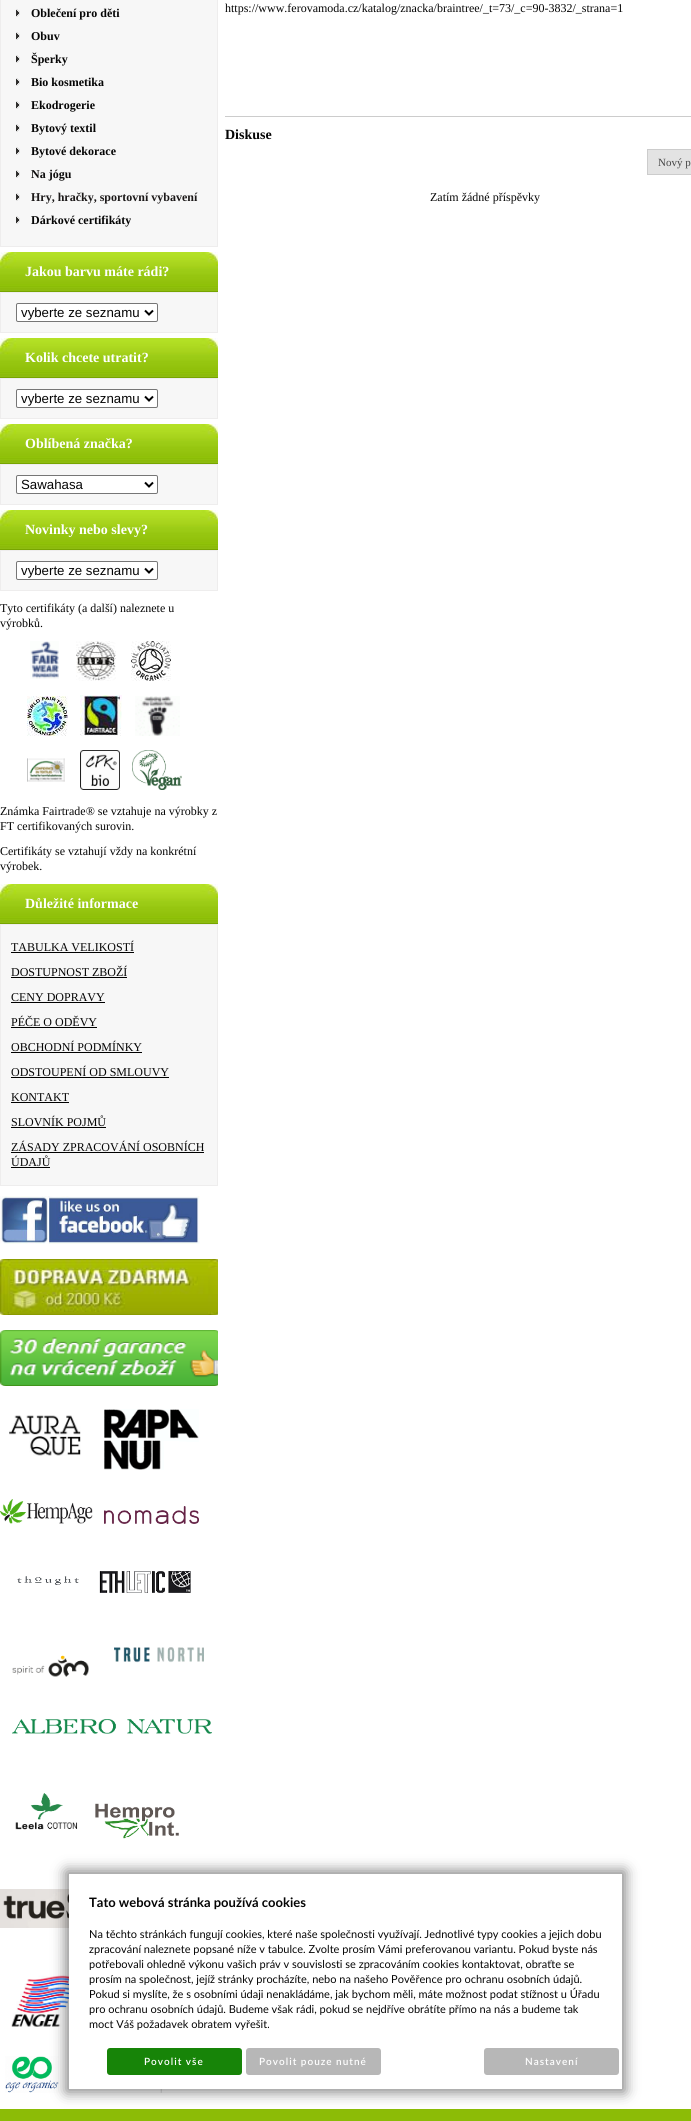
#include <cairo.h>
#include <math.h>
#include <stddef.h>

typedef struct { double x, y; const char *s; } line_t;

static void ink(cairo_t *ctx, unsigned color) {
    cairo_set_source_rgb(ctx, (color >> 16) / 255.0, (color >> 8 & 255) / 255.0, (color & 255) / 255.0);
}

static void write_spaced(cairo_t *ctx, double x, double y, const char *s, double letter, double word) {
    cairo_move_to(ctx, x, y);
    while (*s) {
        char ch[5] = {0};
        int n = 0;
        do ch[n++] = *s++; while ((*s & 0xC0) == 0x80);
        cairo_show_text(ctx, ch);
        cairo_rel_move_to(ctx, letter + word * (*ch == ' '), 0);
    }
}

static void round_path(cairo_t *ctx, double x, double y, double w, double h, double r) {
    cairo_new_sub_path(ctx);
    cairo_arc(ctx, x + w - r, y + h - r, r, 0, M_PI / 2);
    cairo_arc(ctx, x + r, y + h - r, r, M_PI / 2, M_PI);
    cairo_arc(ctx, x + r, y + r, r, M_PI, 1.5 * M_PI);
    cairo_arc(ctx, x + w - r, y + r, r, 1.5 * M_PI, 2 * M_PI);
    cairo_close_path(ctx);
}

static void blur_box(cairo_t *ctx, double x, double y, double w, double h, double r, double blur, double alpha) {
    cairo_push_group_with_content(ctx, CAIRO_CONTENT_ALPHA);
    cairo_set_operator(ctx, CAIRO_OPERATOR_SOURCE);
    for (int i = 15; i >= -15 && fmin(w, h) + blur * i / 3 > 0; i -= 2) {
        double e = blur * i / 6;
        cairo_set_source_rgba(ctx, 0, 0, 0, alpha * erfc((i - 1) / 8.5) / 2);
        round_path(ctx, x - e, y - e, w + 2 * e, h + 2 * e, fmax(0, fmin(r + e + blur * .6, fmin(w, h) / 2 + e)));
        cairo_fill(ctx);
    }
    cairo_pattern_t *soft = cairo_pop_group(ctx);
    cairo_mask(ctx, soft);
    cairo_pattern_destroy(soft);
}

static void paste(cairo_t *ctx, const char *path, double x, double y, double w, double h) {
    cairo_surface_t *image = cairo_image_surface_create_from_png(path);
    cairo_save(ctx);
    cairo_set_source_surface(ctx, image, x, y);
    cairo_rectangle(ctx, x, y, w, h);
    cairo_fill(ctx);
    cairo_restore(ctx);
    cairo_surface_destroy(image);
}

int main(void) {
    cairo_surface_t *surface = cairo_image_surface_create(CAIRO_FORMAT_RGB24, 691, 2121);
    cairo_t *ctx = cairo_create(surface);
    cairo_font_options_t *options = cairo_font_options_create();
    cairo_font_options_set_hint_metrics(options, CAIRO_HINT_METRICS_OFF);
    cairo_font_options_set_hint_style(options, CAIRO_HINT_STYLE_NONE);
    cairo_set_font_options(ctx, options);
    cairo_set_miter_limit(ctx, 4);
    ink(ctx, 0x8CBC06);
    cairo_paint(ctx);
    ink(ctx, 0xFFFFFF);
    cairo_rectangle(ctx, 0, 0, 691, 2109);
    cairo_fill(ctx);
    ink(ctx, 0xF7F7F7);
    cairo_rectangle(ctx, 0.5, -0.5, 217, 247);
    cairo_fill_preserve(ctx);
    ink(ctx, 0xEEEDED);
    cairo_set_line_width(ctx, 1);
    cairo_stroke(ctx);
    paste(ctx, "media/1.png", 16, 9, 4, 8);
    cairo_select_font_face(ctx, "Liberation Serif", CAIRO_FONT_SLANT_NORMAL, CAIRO_FONT_WEIGHT_BOLD);
    cairo_set_font_size(ctx, 12);
    ink(ctx, 0x050505);
    cairo_move_to(ctx, 31, 17);
    cairo_show_text(ctx, "Oblečení pro děti");
    paste(ctx, "media/1.png", 16, 32, 4, 8);
    cairo_move_to(ctx, 31, 40);
    cairo_show_text(ctx, "Obuv");
    paste(ctx, "media/1.png", 16, 55, 4, 8);
    cairo_move_to(ctx, 31, 63);
    cairo_show_text(ctx, "Šperky");
    paste(ctx, "media/1.png", 16, 78, 4, 8);
    cairo_move_to(ctx, 31, 86);
    cairo_show_text(ctx, "Bio kosmetika");
    paste(ctx, "media/1.png", 16, 101, 4, 8);
    cairo_move_to(ctx, 31, 109);
    cairo_show_text(ctx, "Ekodrogerie");
    paste(ctx, "media/1.png", 16, 124, 4, 8);
    cairo_move_to(ctx, 31, 132);
    cairo_show_text(ctx, "Bytový textil");
    paste(ctx, "media/1.png", 16, 147, 4, 8);
    cairo_move_to(ctx, 31, 155);
    cairo_show_text(ctx, "Bytové dekorace");
    paste(ctx, "media/1.png", 16, 170, 4, 8);
    ink(ctx, 0x0B0A0A);
    cairo_move_to(ctx, 31, 178);
    cairo_show_text(ctx, "Na jógu");
    paste(ctx, "media/1.png", 16, 193, 4, 8);
    ink(ctx, 0x1B1818);
    cairo_move_to(ctx, 31, 201);
    cairo_show_text(ctx, "Hry, hračky, sportovní vybavení");
    paste(ctx, "media/1.png", 16, 216, 4, 8);
    ink(ctx, 0x050505);
    cairo_move_to(ctx, 31, 224);
    cairo_show_text(ctx, "Dárkové certifikáty");
    paste(ctx, "media/2.png", 0, 252, 218, 40);
    cairo_set_font_size(ctx, 14);
    ink(ctx, 0xFFFFFF);
    cairo_move_to(ctx, 25, 276);
    cairo_show_text(ctx, "Jakou barvu máte rádi?");
    ink(ctx, 0xF7F7F7);
    cairo_rectangle(ctx, 0.5, 292.5, 217, 40);
    cairo_fill_preserve(ctx);
    ink(ctx, 0xEEEDED);
    cairo_stroke(ctx);
    ink(ctx, 0xFFFFFF);
    round_path(ctx, 16.5, 303.5, 141, 18, 1.5);
    cairo_fill_preserve(ctx);
    ink(ctx, 0x767676);
    cairo_stroke(ctx);
    cairo_new_path(ctx);
    cairo_move_to(ctx, 145, 310.5);
    cairo_line_to(ctx, 149, 314.5);
    cairo_line_to(ctx, 153, 310.5);
    ink(ctx, 0x000000);
    cairo_set_line_width(ctx, 2);
    cairo_stroke(ctx);
    cairo_select_font_face(ctx, "Liberation Sans", CAIRO_FONT_SLANT_NORMAL, CAIRO_FONT_WEIGHT_NORMAL);
    cairo_set_font_size(ctx, 13.25);
    ink(ctx, 0x050505);
    cairo_move_to(ctx, 21, 317);
    cairo_show_text(ctx, "vyberte ze seznamu");
    paste(ctx, "media/2.png", 0, 338, 218, 40);
    cairo_select_font_face(ctx, "Liberation Serif", CAIRO_FONT_SLANT_NORMAL, CAIRO_FONT_WEIGHT_BOLD);
    cairo_set_font_size(ctx, 14);
    ink(ctx, 0xFFFFFF);
    cairo_move_to(ctx, 25, 362);
    cairo_show_text(ctx, "Kolik chcete utratit?");
    ink(ctx, 0xF7F7F7);
    cairo_rectangle(ctx, 0.5, 378.5, 217, 40);
    cairo_fill_preserve(ctx);
    ink(ctx, 0xEEEDED);
    cairo_set_line_width(ctx, 1);
    cairo_stroke(ctx);
    ink(ctx, 0xFFFFFF);
    round_path(ctx, 16.5, 389.5, 141, 18, 1.5);
    cairo_fill_preserve(ctx);
    ink(ctx, 0x767676);
    cairo_stroke(ctx);
    cairo_new_path(ctx);
    cairo_move_to(ctx, 145, 396.5);
    cairo_line_to(ctx, 149, 400.5);
    cairo_line_to(ctx, 153, 396.5);
    ink(ctx, 0x000000);
    cairo_set_line_width(ctx, 2);
    cairo_stroke(ctx);
    cairo_select_font_face(ctx, "Liberation Sans", CAIRO_FONT_SLANT_NORMAL, CAIRO_FONT_WEIGHT_NORMAL);
    cairo_set_font_size(ctx, 13.25);
    ink(ctx, 0x050505);
    cairo_move_to(ctx, 21, 403);
    cairo_show_text(ctx, "vyberte ze seznamu");
    paste(ctx, "media/2.png", 0, 424, 218, 40);
    cairo_select_font_face(ctx, "Liberation Serif", CAIRO_FONT_SLANT_NORMAL, CAIRO_FONT_WEIGHT_BOLD);
    cairo_set_font_size(ctx, 14);
    ink(ctx, 0xFFFFFF);
    cairo_move_to(ctx, 25, 448);
    cairo_show_text(ctx, "Oblíbená značka?");
    ink(ctx, 0xF7F7F7);
    cairo_rectangle(ctx, 0.5, 464.5, 217, 40);
    cairo_fill_preserve(ctx);
    ink(ctx, 0xEEEDED);
    cairo_set_line_width(ctx, 1);
    cairo_stroke(ctx);
    ink(ctx, 0xFFFFFF);
    round_path(ctx, 16.5, 475.5, 141, 18, 1.5);
    cairo_fill_preserve(ctx);
    ink(ctx, 0x767676);
    cairo_stroke(ctx);
    cairo_new_path(ctx);
    cairo_move_to(ctx, 145, 482.5);
    cairo_line_to(ctx, 149, 486.5);
    cairo_line_to(ctx, 153, 482.5);
    ink(ctx, 0x000000);
    cairo_set_line_width(ctx, 2);
    cairo_stroke(ctx);
    cairo_select_font_face(ctx, "Liberation Sans", CAIRO_FONT_SLANT_NORMAL, CAIRO_FONT_WEIGHT_NORMAL);
    cairo_set_font_size(ctx, 13.25);
    ink(ctx, 0x050505);
    cairo_move_to(ctx, 21, 489);
    cairo_show_text(ctx, "Sawahasa");
    paste(ctx, "media/2.png", 0, 510, 218, 40);
    cairo_select_font_face(ctx, "Liberation Serif", CAIRO_FONT_SLANT_NORMAL, CAIRO_FONT_WEIGHT_BOLD);
    cairo_set_font_size(ctx, 14);
    ink(ctx, 0xFFFFFF);
    cairo_move_to(ctx, 25, 534);
    cairo_show_text(ctx, "Novinky nebo slevy?");
    ink(ctx, 0xF7F7F7);
    cairo_rectangle(ctx, 0.5, 550.5, 217, 40);
    cairo_fill_preserve(ctx);
    ink(ctx, 0xEEEDED);
    cairo_set_line_width(ctx, 1);
    cairo_stroke(ctx);
    ink(ctx, 0xFFFFFF);
    round_path(ctx, 16.5, 561.5, 141, 18, 1.5);
    cairo_fill_preserve(ctx);
    ink(ctx, 0x767676);
    cairo_stroke(ctx);
    cairo_new_path(ctx);
    cairo_move_to(ctx, 145, 568.5);
    cairo_line_to(ctx, 149, 572.5);
    cairo_line_to(ctx, 153, 568.5);
    ink(ctx, 0x000000);
    cairo_set_line_width(ctx, 2);
    cairo_stroke(ctx);
    cairo_select_font_face(ctx, "Liberation Sans", CAIRO_FONT_SLANT_NORMAL, CAIRO_FONT_WEIGHT_NORMAL);
    cairo_set_font_size(ctx, 13.25);
    ink(ctx, 0x050505);
    cairo_move_to(ctx, 21, 575);
    cairo_show_text(ctx, "vyberte ze seznamu");
    cairo_select_font_face(ctx, "Liberation Serif", CAIRO_FONT_SLANT_NORMAL, CAIRO_FONT_WEIGHT_NORMAL);
    cairo_set_font_size(ctx, 12);
    cairo_move_to(ctx, 0, 612);
    cairo_show_text(ctx, "Tyto certifikáty (a další) naleznete u");
    cairo_move_to(ctx, 0, 627);
    cairo_show_text(ctx, "výrobků.");
    paste(ctx, "media/3.png", 30, 641, 29, 38);
    paste(ctx, "media/4.png", 76, 641, 40, 40);
    paste(ctx, "media/5.png", 131, 641, 40, 40);
    paste(ctx, "media/6.png", 27, 696, 41, 40);
    paste(ctx, "media/7.png", 80, 695, 42, 41);
    paste(ctx, "media/8.png", 135, 696, 45, 40);
    paste(ctx, "media/9.png", 27, 758, 38, 24);
    paste(ctx, "media/10.png", 80, 750, 40, 40);
    paste(ctx, "media/11.png", 132, 750, 50, 40);
    {
        static const line_t items[] = {
            {0, 815, "Známka Fairtrade® se vztahuje na výrobky z"},
            {0, 830, "FT certifikovaných surovin."},
            {0, 855, "Certifikáty se vztahují vždy na konkrétní"},
            {0, 870, "výrobek."},
        };
        for (size_t i = 0; i < sizeof items / sizeof *items; i++) {
            cairo_move_to(ctx, items[i].x, items[i].y);
            cairo_show_text(ctx, items[i].s);
        }
    }
    paste(ctx, "media/2.png", 0, 884, 218, 40);
    cairo_select_font_face(ctx, "Liberation Serif", CAIRO_FONT_SLANT_NORMAL, CAIRO_FONT_WEIGHT_BOLD);
    cairo_set_font_size(ctx, 14);
    ink(ctx, 0xFFFFFF);
    cairo_move_to(ctx, 25, 908);
    cairo_show_text(ctx, "Důležité informace");
    ink(ctx, 0xF7F7F7);
    cairo_rectangle(ctx, 0.5, 924.5, 217, 261);
    cairo_fill_preserve(ctx);
    ink(ctx, 0xEEEDED);
    cairo_set_line_width(ctx, 1);
    cairo_stroke(ctx);
    cairo_select_font_face(ctx, "Liberation Serif", CAIRO_FONT_SLANT_NORMAL, CAIRO_FONT_WEIGHT_NORMAL);
    cairo_set_font_size(ctx, 12);
    ink(ctx, 0x050505);
    cairo_move_to(ctx, 11, 951);
    cairo_show_text(ctx, "TABULKA VELIKOSTÍ");
    ink(ctx, 0x000000);
    cairo_rectangle(ctx, 11, 952, 123, 1);
    cairo_fill(ctx);
    ink(ctx, 0x050505);
    cairo_move_to(ctx, 11, 976);
    cairo_show_text(ctx, "DOSTUPNOST ZBOŽÍ");
    ink(ctx, 0x000000);
    cairo_rectangle(ctx, 11, 977, 116, 1);
    cairo_fill(ctx);
    ink(ctx, 0x050505);
    cairo_move_to(ctx, 11, 1001);
    cairo_show_text(ctx, "CENY DOPRAVY");
    ink(ctx, 0x000000);
    cairo_rectangle(ctx, 11, 1002, 94, 1);
    cairo_fill(ctx);
    ink(ctx, 0x050505);
    cairo_move_to(ctx, 11, 1026);
    cairo_show_text(ctx, "PÉČE O ODĚVY");
    ink(ctx, 0x000000);
    cairo_rectangle(ctx, 11, 1027, 86, 1);
    cairo_fill(ctx);
    ink(ctx, 0x050505);
    cairo_move_to(ctx, 11, 1051);
    cairo_show_text(ctx, "OBCHODNÍ PODMÍNKY");
    ink(ctx, 0x000000);
    cairo_rectangle(ctx, 11, 1052, 131, 1);
    cairo_fill(ctx);
    ink(ctx, 0x050505);
    cairo_move_to(ctx, 11, 1076);
    cairo_show_text(ctx, "ODSTOUPENÍ OD SMLOUVY");
    ink(ctx, 0x000000);
    cairo_rectangle(ctx, 11, 1077, 158, 1);
    cairo_fill(ctx);
    ink(ctx, 0x050505);
    cairo_move_to(ctx, 11, 1101);
    cairo_show_text(ctx, "KONTAKT");
    ink(ctx, 0x000000);
    cairo_rectangle(ctx, 11, 1102, 58, 1);
    cairo_fill(ctx);
    ink(ctx, 0x050505);
    cairo_move_to(ctx, 11, 1126);
    cairo_show_text(ctx, "SLOVNÍK POJMŮ");
    ink(ctx, 0x000000);
    cairo_rectangle(ctx, 11, 1127, 95, 1);
    cairo_fill(ctx);
    ink(ctx, 0x050505);
    cairo_move_to(ctx, 11, 1151);
    cairo_show_text(ctx, "ZÁSADY ZPRACOVÁNÍ OSOBNÍCH");
    ink(ctx, 0x000000);
    cairo_rectangle(ctx, 11, 1152, 193, 1);
    cairo_fill(ctx);
    ink(ctx, 0x050505);
    cairo_move_to(ctx, 11, 1166);
    cairo_show_text(ctx, "ÚDAJŮ");
    ink(ctx, 0x000000);
    cairo_rectangle(ctx, 11, 1167, 39, 1);
    cairo_fill(ctx);
    paste(ctx, "media/12.png", 0, 1196, 200, 48);
    paste(ctx, "media/13.png", 0, 1259, 218, 56);
    paste(ctx, "media/14.png", 0, 1330, 218, 56);
    paste(ctx, "media/15.png", 9, 1415, 72, 41);
    paste(ctx, "media/16.png", 104, 1409, 95, 61);
    paste(ctx, "media/17.png", 0, 1499, 93, 25);
    paste(ctx, "media/18.png", 104, 1506, 95, 18);
    paste(ctx, "media/19.png", 17, 1576, 62, 9);
    paste(ctx, "media/20.png", 99, 1571, 92, 22);
    paste(ctx, "media/21.png", 12, 1655, 77, 22);
    paste(ctx, "media/22.png", 114, 1647, 90, 16);
    paste(ctx, "media/23.png", 12, 1719, 200, 15);
    paste(ctx, "media/24.png", 15, 1793, 63, 37);
    paste(ctx, "media/25.png", 95, 1803, 84, 36);
    paste(ctx, "media/26.png", 0, 1889, 69, 39);
    paste(ctx, "media/27.png", 11, 1975, 58, 52);
    paste(ctx, "media/28.png", 5, 2056, 54, 37);
    paste(ctx, "media/29.png", 79, 2089, 120, 4);
    ink(ctx, 0x050505);
    cairo_move_to(ctx, 225, 12);
    cairo_show_text(ctx, "https://www.ferovamoda.cz/katalog/znacka/braintree/_t=73/_c=90-3832/_strana=1");
    ink(ctx, 0xCCCCCC);
    cairo_rectangle(ctx, 225, 116, 466, 1);
    cairo_fill(ctx);
    cairo_select_font_face(ctx, "Liberation Serif", CAIRO_FONT_SLANT_NORMAL, CAIRO_FONT_WEIGHT_BOLD);
    cairo_set_font_size(ctx, 14);
    ink(ctx, 0x050505);
    cairo_move_to(ctx, 225, 139);
    cairo_show_text(ctx, "Diskuse");
    ink(ctx, 0xE3E3E3);
    cairo_rectangle(ctx, 647.5, 149.5, 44, 25);
    cairo_fill_preserve(ctx);
    ink(ctx, 0xCCCCCC);
    cairo_stroke(ctx);
    cairo_select_font_face(ctx, "Liberation Serif", CAIRO_FONT_SLANT_NORMAL, CAIRO_FONT_WEIGHT_NORMAL);
    cairo_set_font_size(ctx, 11);
    ink(ctx, 0x454545);
    cairo_move_to(ctx, 658, 166);
    cairo_show_text(ctx, "Nový p");
    cairo_set_font_size(ctx, 12);
    ink(ctx, 0x050505);
    cairo_move_to(ctx, 430, 201);
    cairo_show_text(ctx, "Zatím žádné příspěvky");
    ink(ctx, 0x000000);
    blur_box(ctx, 66, 1871, 559, 221, 0, 7, 0.5);
    ink(ctx, 0xFFFFFF);
    cairo_rectangle(ctx, 69, 1874, 553, 215);
    cairo_fill(ctx);
    cairo_select_font_face(ctx, "Lato", CAIRO_FONT_SLANT_NORMAL, CAIRO_FONT_WEIGHT_BOLD);
    cairo_set_font_size(ctx, 13);
    ink(ctx, 0x050505);
    cairo_move_to(ctx, 89, 1907);
    cairo_show_text(ctx, "Tato webová stránka používá cookies");
    cairo_select_font_face(ctx, "Lato", CAIRO_FONT_SLANT_NORMAL, CAIRO_FONT_WEIGHT_NORMAL);
    cairo_set_font_size(ctx, 11);
    {
        static const line_t items[] = {
            {89, 1938, "Na těchto stránkách fungují cookies, které naše společnosti využívají. Jednotlivé typy cookies a jejich dobu"},
            {89, 1953, "zpracování naleznete popsané níže v tabulce. Zvolte prosím Vámi preferovanou variantu. Pokud byste nás"},
            {89, 1968, "potřebovali ohledně výkonu vašich práv v souvislosti se zpracováním cookies kontaktovat, obraťte se"},
            {89, 1983, "prosím na společnost, jejíž stránky procházíte, nebo na našeho Pověřence pro ochranu osobních údajů."},
            {89, 1998, "Pokud si myslíte, že s osobními údaji nenakládáme, jak bychom měli, máte možnost podat stížnost u Úřadu"},
            {89, 2013, "pro ochranu osobních údajů. Budeme však rádi, pokud se nejdříve obrátíte přímo na nás a budeme tak"},
            {89, 2028, "moct Váš požadavek obratem vyřešit."},
        };
        for (size_t i = 0; i < sizeof items / sizeof *items; i++) {
            cairo_move_to(ctx, items[i].x, items[i].y);
            cairo_show_text(ctx, items[i].s);
        }
    }
    ink(ctx, 0x178408);
    round_path(ctx, 107, 2048, 135, 27, 3);
    cairo_fill(ctx);
    cairo_select_font_face(ctx, "Lato SemiBold", CAIRO_FONT_SLANT_NORMAL, CAIRO_FONT_WEIGHT_NORMAL);
    cairo_set_font_size(ctx, 10);
    ink(ctx, 0xFFFFFF);
    write_spaced(ctx, 144, 2065, "Povolit vše", 1, 0);
    ink(ctx, 0xB7B7B7);
    round_path(ctx, 246, 2048, 135, 27, 3);
    cairo_fill(ctx);
    ink(ctx, 0xFFFFFF);
    write_spaced(ctx, 259, 2065, "Povolit pouze nutné", 1, 0);
    ink(ctx, 0xB7B7B7);
    round_path(ctx, 484, 2048, 135, 27, 3);
    cairo_fill(ctx);
    ink(ctx, 0xFFFFFF);
    write_spaced(ctx, 525, 2065, "Nastavení", 1, 0);
    cairo_surface_write_to_png(surface, "image.png");
    cairo_font_options_destroy(options);
    cairo_destroy(ctx);
    cairo_surface_destroy(surface);
    return 0;
}
